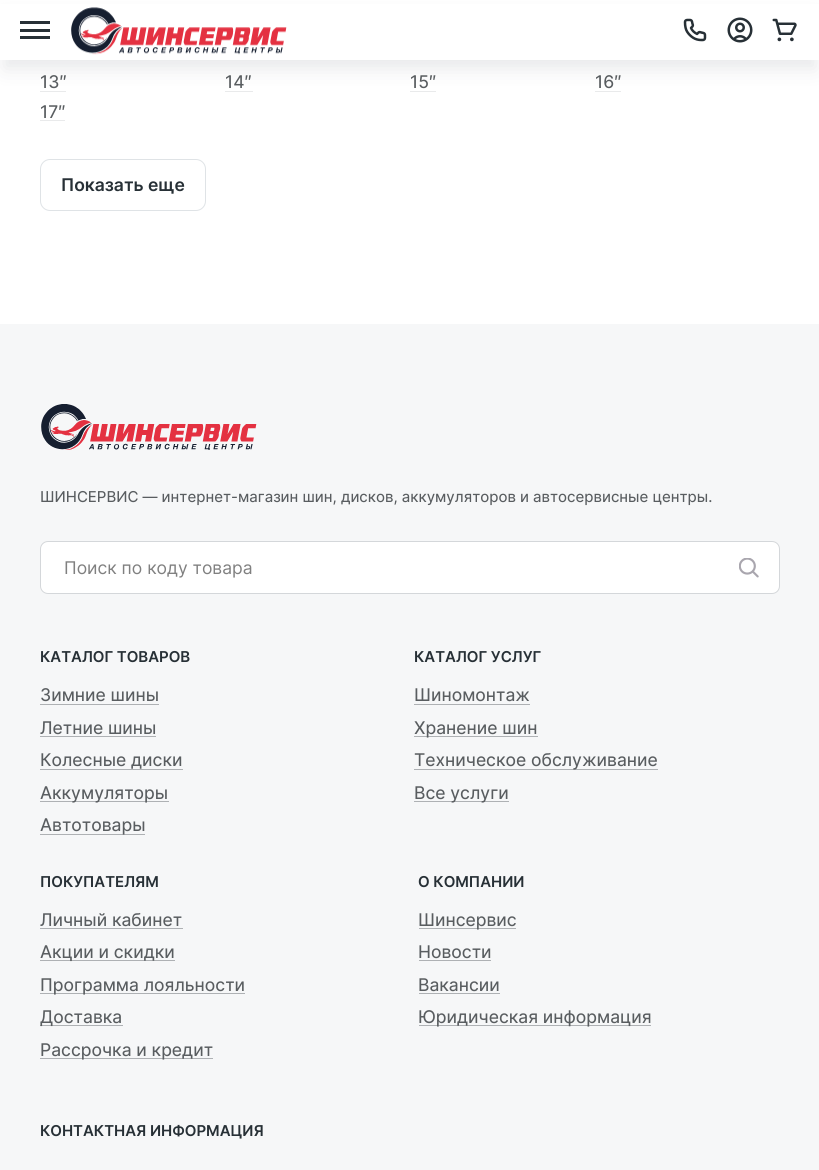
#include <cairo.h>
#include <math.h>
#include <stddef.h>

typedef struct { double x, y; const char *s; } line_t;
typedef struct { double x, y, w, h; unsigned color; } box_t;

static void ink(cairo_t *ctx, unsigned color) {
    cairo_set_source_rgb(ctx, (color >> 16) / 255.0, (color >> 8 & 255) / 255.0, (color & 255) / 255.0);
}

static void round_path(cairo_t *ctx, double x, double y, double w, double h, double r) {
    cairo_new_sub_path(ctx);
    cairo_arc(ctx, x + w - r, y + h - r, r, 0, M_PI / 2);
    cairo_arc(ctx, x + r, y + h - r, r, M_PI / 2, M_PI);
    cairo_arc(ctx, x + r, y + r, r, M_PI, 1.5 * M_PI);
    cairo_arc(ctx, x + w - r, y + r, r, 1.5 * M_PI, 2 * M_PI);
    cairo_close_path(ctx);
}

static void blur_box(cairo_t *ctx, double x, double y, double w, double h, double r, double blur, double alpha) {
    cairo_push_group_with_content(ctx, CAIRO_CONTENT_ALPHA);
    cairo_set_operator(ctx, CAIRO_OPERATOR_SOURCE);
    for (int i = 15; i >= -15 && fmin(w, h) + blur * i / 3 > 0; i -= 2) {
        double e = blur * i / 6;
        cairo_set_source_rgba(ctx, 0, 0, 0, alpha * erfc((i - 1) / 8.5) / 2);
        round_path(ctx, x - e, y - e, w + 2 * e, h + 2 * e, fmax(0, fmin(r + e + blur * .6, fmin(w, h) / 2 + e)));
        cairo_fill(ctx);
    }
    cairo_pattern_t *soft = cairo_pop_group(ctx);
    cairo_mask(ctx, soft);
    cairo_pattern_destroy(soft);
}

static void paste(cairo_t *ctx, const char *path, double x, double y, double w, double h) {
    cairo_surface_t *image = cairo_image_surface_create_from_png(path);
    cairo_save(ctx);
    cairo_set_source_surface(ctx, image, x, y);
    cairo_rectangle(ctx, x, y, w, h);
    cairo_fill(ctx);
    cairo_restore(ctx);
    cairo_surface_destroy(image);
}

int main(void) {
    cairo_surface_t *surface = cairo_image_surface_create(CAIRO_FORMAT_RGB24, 819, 1170);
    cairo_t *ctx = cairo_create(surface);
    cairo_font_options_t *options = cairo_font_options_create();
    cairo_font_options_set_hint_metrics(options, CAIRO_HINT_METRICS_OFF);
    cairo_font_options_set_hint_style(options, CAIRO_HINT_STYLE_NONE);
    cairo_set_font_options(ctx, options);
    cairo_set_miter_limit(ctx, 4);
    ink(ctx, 0xFFFFFF);
    cairo_paint(ctx);
    {
        static const box_t items[] = {
            {40, 91, 26, 1, 0xE9EAEB},
            {225, 91, 28, 1, 0xE9EAEB},
            {410, 91, 26, 1, 0xE9EAEB},
            {595, 91, 26, 1, 0xE9EAEB},
        };
        for (size_t i = 0; i < sizeof items / sizeof *items; i++) {
            ink(ctx, items[i].color);
            cairo_rectangle(ctx, items[i].x, items[i].y, items[i].w, items[i].h);
            cairo_fill(ctx);
        }
    }
    ink(ctx, 0x161F30);
    blur_box(ctx, 4, 16, 812, 53, 0, 9.5, 0.1);
    {
        static const box_t items[] = {
            {0, 4, 819, 56, 0xFFFFFF},
            {20, 21, 30, 3, 0x273036},
            {20, 29, 30, 3, 0x273036},
            {20, 36, 30, 3, 0x273036},
        };
        for (size_t i = 0; i < sizeof items / sizeof *items; i++) {
            ink(ctx, items[i].color);
            cairo_rectangle(ctx, items[i].x, items[i].y, items[i].w, items[i].h);
            cairo_fill(ctx);
        }
    }
    paste(ctx, "media/1.png", 71, 7, 216, 48);
    paste(ctx, "media/2.png", 683, 18, 24, 24);
    paste(ctx, "media/3.png", 727, 17, 26, 26);
    paste(ctx, "media/4.png", 772, 18, 25, 24);
    cairo_select_font_face(ctx, "Inter", CAIRO_FONT_SLANT_NORMAL, CAIRO_FONT_WEIGHT_NORMAL);
    cairo_set_font_size(ctx, 17.5);
    ink(ctx, 0x595D60);
    {
        static const line_t items[] = {
            {40, 88, "13″"},
            {225, 88, "14″"},
            {410, 88, "15″"},
            {595, 88, "16″"},
            {40, 118, "17″"},
        };
        for (size_t i = 0; i < sizeof items / sizeof *items; i++) {
            cairo_move_to(ctx, items[i].x, items[i].y);
            cairo_show_text(ctx, items[i].s);
        }
    }
    ink(ctx, 0xE9EAEB);
    cairo_rectangle(ctx, 40, 120, 25, 1);
    cairo_fill(ctx);
    round_path(ctx, 40.5, 159.5, 165, 51, 9.5);
    ink(ctx, 0xDFE3E6);
    cairo_set_line_width(ctx, 1);
    cairo_stroke(ctx);
    cairo_select_font_face(ctx, "Inter SemiBold", CAIRO_FONT_SLANT_NORMAL, CAIRO_FONT_WEIGHT_NORMAL);
    ink(ctx, 0x273036);
    cairo_move_to(ctx, 61, 191);
    cairo_show_text(ctx, "Показать еще");
    ink(ctx, 0xF6F7F8);
    cairo_rectangle(ctx, 0, 324, 819, 846);
    cairo_fill(ctx);
    paste(ctx, "media/5.png", 41, 404, 216, 46);
    cairo_select_font_face(ctx, "Inter", CAIRO_FONT_SLANT_NORMAL, CAIRO_FONT_WEIGHT_NORMAL);
    cairo_set_font_size(ctx, 15);
    ink(ctx, 0x595D60);
    cairo_move_to(ctx, 40, 502);
    cairo_show_text(ctx, "ШИНСЕРВИС — интернет-магазин шин, дисков, аккумуляторов и автосервисные центры.");
    ink(ctx, 0xFFFFFF);
    round_path(ctx, 40.5, 541.5, 739, 52, 7.5);
    cairo_fill_preserve(ctx);
    ink(ctx, 0xD4D7DA);
    cairo_stroke(ctx);
    cairo_select_font_face(ctx, "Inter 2", CAIRO_FONT_SLANT_NORMAL, CAIRO_FONT_WEIGHT_NORMAL);
    cairo_set_font_size(ctx, 17.5);
    ink(ctx, 0x808080);
    cairo_move_to(ctx, 64, 574);
    cairo_show_text(ctx, "Поиск по коду товара");
    paste(ctx, "media/6.png", 739, 558, 20, 20);
    cairo_select_font_face(ctx, "Inter SemiBold", CAIRO_FONT_SLANT_NORMAL, CAIRO_FONT_WEIGHT_NORMAL);
    cairo_set_font_size(ctx, 15);
    ink(ctx, 0x273036);
    cairo_move_to(ctx, 40, 662);
    cairo_show_text(ctx, "КАТАЛОГ ТОВАРОВ");
    cairo_select_font_face(ctx, "Inter", CAIRO_FONT_SLANT_NORMAL, CAIRO_FONT_WEIGHT_NORMAL);
    cairo_set_font_size(ctx, 17.5);
    ink(ctx, 0x595D60);
    cairo_move_to(ctx, 40, 701);
    cairo_show_text(ctx, "Зимние шины");
    ink(ctx, 0xAEB1B4);
    cairo_rectangle(ctx, 40, 704, 119, 1);
    cairo_fill(ctx);
    ink(ctx, 0x595D60);
    cairo_move_to(ctx, 40, 734);
    cairo_show_text(ctx, "Летние шины");
    ink(ctx, 0xAEB1B4);
    cairo_rectangle(ctx, 40, 736, 116, 1);
    cairo_fill(ctx);
    ink(ctx, 0x595D60);
    cairo_move_to(ctx, 40, 766);
    cairo_show_text(ctx, "Колесные диски");
    ink(ctx, 0xAEB1B4);
    cairo_rectangle(ctx, 40, 769, 143, 1);
    cairo_fill(ctx);
    cairo_rectangle(ctx, 40, 801, 129, 1);
    cairo_fill(ctx);
    ink(ctx, 0x595D60);
    cairo_move_to(ctx, 40, 799);
    cairo_show_text(ctx, "Аккумуляторы");
    ink(ctx, 0xAEB1B4);
    cairo_rectangle(ctx, 40, 834, 105, 1);
    cairo_fill(ctx);
    ink(ctx, 0x595D60);
    cairo_move_to(ctx, 40, 831);
    cairo_show_text(ctx, "Автотовары");
    cairo_select_font_face(ctx, "Inter SemiBold", CAIRO_FONT_SLANT_NORMAL, CAIRO_FONT_WEIGHT_NORMAL);
    cairo_set_font_size(ctx, 15);
    ink(ctx, 0x273036);
    cairo_move_to(ctx, 414, 662);
    cairo_show_text(ctx, "КАТАЛОГ УСЛУГ");
    cairo_select_font_face(ctx, "Inter", CAIRO_FONT_SLANT_NORMAL, CAIRO_FONT_WEIGHT_NORMAL);
    cairo_set_font_size(ctx, 17.5);
    ink(ctx, 0x595D60);
    cairo_move_to(ctx, 414, 701);
    cairo_show_text(ctx, "Шиномонтаж");
    ink(ctx, 0xAEB1B4);
    cairo_rectangle(ctx, 414, 704, 116, 1);
    cairo_fill(ctx);
    cairo_rectangle(ctx, 414, 736, 124, 1);
    cairo_fill(ctx);
    ink(ctx, 0x595D60);
    cairo_move_to(ctx, 414, 734);
    cairo_show_text(ctx, "Хранение шин");
    ink(ctx, 0xAEB1B4);
    cairo_rectangle(ctx, 414, 769, 244, 1);
    cairo_fill(ctx);
    ink(ctx, 0x595D60);
    cairo_move_to(ctx, 414, 766);
    cairo_show_text(ctx, "Техническое обслуживание");
    ink(ctx, 0xAEB1B4);
    cairo_rectangle(ctx, 414, 801, 95, 1);
    cairo_fill(ctx);
    ink(ctx, 0x595D60);
    cairo_move_to(ctx, 414, 799);
    cairo_show_text(ctx, "Все услуги");
    cairo_select_font_face(ctx, "Inter SemiBold", CAIRO_FONT_SLANT_NORMAL, CAIRO_FONT_WEIGHT_NORMAL);
    cairo_set_font_size(ctx, 15);
    ink(ctx, 0x273036);
    cairo_move_to(ctx, 40, 887);
    cairo_show_text(ctx, "ПОКУПАТЕЛЯМ");
    cairo_select_font_face(ctx, "Inter", CAIRO_FONT_SLANT_NORMAL, CAIRO_FONT_WEIGHT_NORMAL);
    cairo_set_font_size(ctx, 17.5);
    ink(ctx, 0x595D60);
    cairo_move_to(ctx, 40, 926);
    cairo_show_text(ctx, "Личный кабинет");
    ink(ctx, 0xAEB1B4);
    cairo_rectangle(ctx, 40, 928, 143, 1);
    cairo_fill(ctx);
    cairo_rectangle(ctx, 40, 960, 135, 1);
    cairo_fill(ctx);
    ink(ctx, 0x595D60);
    cairo_move_to(ctx, 40, 958);
    cairo_show_text(ctx, "Акции и скидки");
    ink(ctx, 0xAEB1B4);
    cairo_rectangle(ctx, 40, 993, 205, 1);
    cairo_fill(ctx);
    ink(ctx, 0x595D60);
    cairo_move_to(ctx, 40, 991);
    cairo_show_text(ctx, "Программа лояльности");
    ink(ctx, 0xAEB1B4);
    cairo_rectangle(ctx, 40, 1025, 83, 1);
    cairo_fill(ctx);
    ink(ctx, 0x595D60);
    cairo_move_to(ctx, 40, 1023);
    cairo_show_text(ctx, "Доставка");
    ink(ctx, 0xAEB1B4);
    cairo_rectangle(ctx, 40, 1058, 173, 1);
    cairo_fill(ctx);
    ink(ctx, 0x595D60);
    cairo_move_to(ctx, 40, 1056);
    cairo_show_text(ctx, "Рассрочка и кредит");
    cairo_select_font_face(ctx, "Inter SemiBold", CAIRO_FONT_SLANT_NORMAL, CAIRO_FONT_WEIGHT_NORMAL);
    cairo_set_font_size(ctx, 15);
    ink(ctx, 0x273036);
    cairo_move_to(ctx, 418, 887);
    cairo_show_text(ctx, "О КОМПАНИИ");
    ink(ctx, 0xAEB1B4);
    cairo_rectangle(ctx, 419, 928, 97, 1);
    cairo_fill(ctx);
    cairo_select_font_face(ctx, "Inter", CAIRO_FONT_SLANT_NORMAL, CAIRO_FONT_WEIGHT_NORMAL);
    cairo_set_font_size(ctx, 17.5);
    ink(ctx, 0x595D60);
    cairo_move_to(ctx, 418, 926);
    cairo_show_text(ctx, "Шинсервис");
    cairo_move_to(ctx, 418, 958);
    cairo_show_text(ctx, "Новости");
    ink(ctx, 0xAEB1B4);
    cairo_rectangle(ctx, 419, 960, 72, 1);
    cairo_fill(ctx);
    ink(ctx, 0x595D60);
    cairo_move_to(ctx, 418, 991);
    cairo_show_text(ctx, "Вакансии");
    ink(ctx, 0xAEB1B4);
    cairo_rectangle(ctx, 419, 993, 81, 1);
    cairo_fill(ctx);
    cairo_rectangle(ctx, 419, 1025, 232, 1);
    cairo_fill(ctx);
    ink(ctx, 0x595D60);
    cairo_move_to(ctx, 418, 1023);
    cairo_show_text(ctx, "Юридическая информация");
    cairo_select_font_face(ctx, "Inter SemiBold", CAIRO_FONT_SLANT_NORMAL, CAIRO_FONT_WEIGHT_NORMAL);
    cairo_set_font_size(ctx, 15);
    ink(ctx, 0x273036);
    cairo_move_to(ctx, 40, 1136);
    cairo_show_text(ctx, "КОНТАКТНАЯ ИНФОРМАЦИЯ");
    cairo_surface_write_to_png(surface, "image.png");
    cairo_font_options_destroy(options);
    cairo_destroy(ctx);
    cairo_surface_destroy(surface);
    return 0;
}
